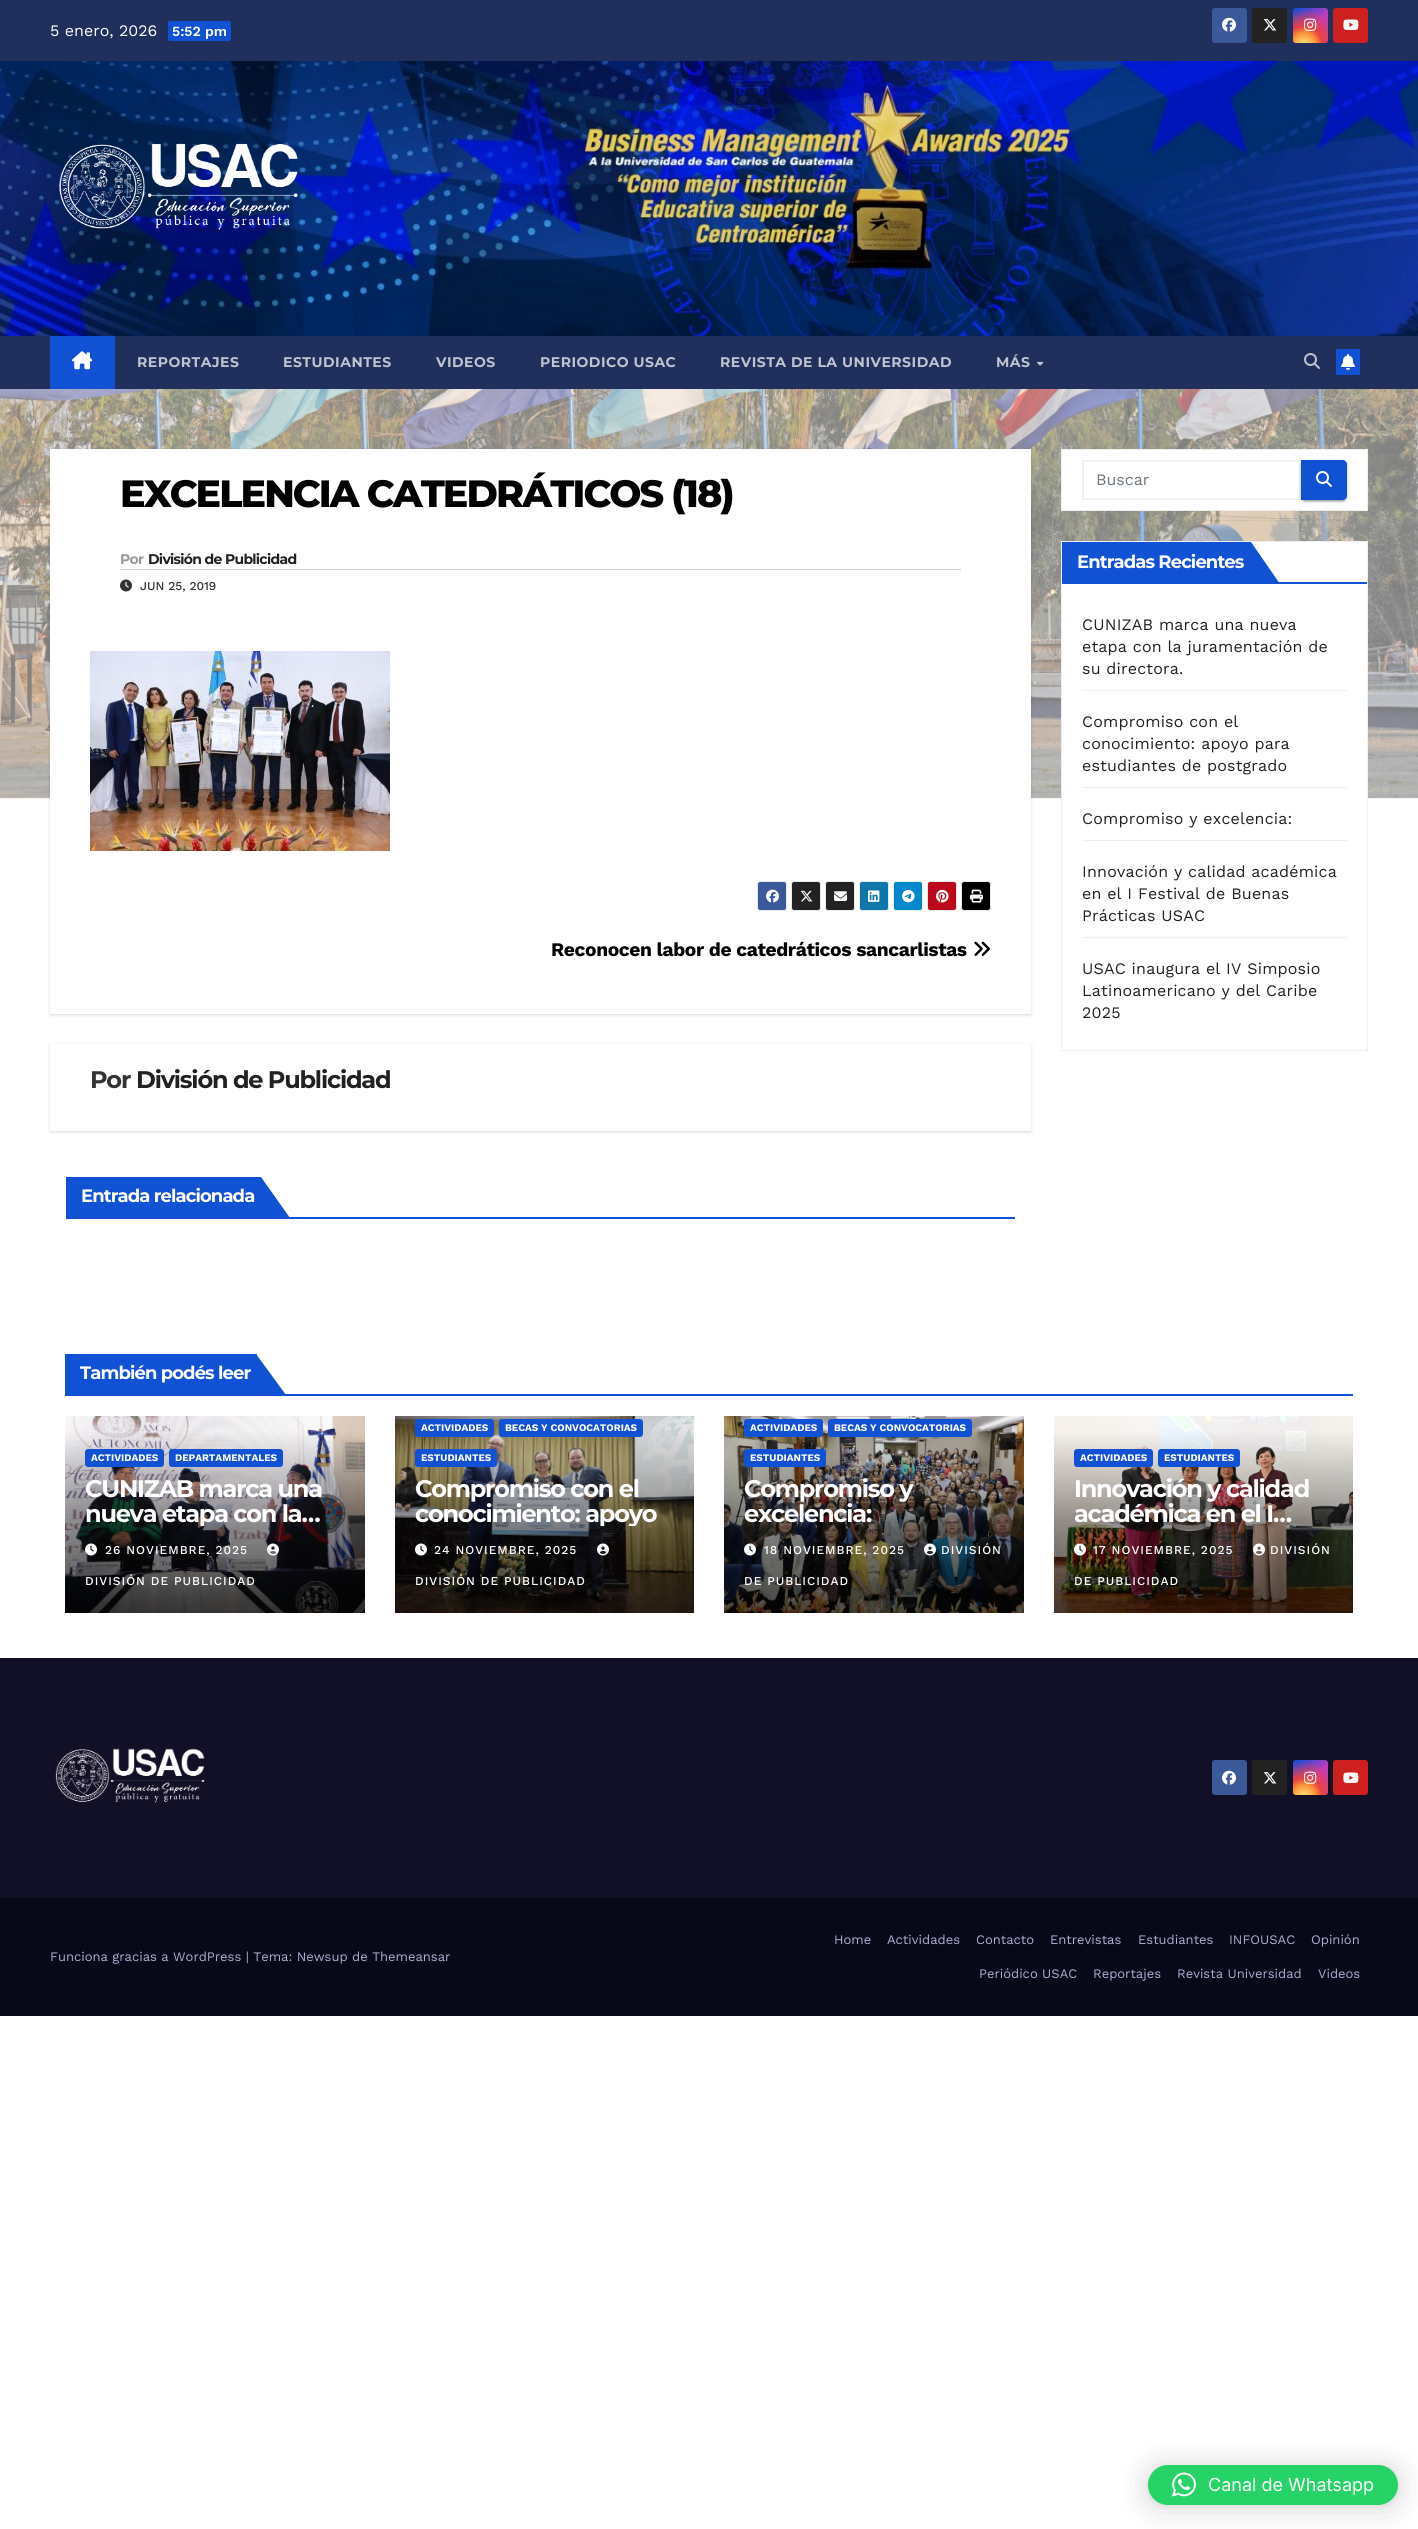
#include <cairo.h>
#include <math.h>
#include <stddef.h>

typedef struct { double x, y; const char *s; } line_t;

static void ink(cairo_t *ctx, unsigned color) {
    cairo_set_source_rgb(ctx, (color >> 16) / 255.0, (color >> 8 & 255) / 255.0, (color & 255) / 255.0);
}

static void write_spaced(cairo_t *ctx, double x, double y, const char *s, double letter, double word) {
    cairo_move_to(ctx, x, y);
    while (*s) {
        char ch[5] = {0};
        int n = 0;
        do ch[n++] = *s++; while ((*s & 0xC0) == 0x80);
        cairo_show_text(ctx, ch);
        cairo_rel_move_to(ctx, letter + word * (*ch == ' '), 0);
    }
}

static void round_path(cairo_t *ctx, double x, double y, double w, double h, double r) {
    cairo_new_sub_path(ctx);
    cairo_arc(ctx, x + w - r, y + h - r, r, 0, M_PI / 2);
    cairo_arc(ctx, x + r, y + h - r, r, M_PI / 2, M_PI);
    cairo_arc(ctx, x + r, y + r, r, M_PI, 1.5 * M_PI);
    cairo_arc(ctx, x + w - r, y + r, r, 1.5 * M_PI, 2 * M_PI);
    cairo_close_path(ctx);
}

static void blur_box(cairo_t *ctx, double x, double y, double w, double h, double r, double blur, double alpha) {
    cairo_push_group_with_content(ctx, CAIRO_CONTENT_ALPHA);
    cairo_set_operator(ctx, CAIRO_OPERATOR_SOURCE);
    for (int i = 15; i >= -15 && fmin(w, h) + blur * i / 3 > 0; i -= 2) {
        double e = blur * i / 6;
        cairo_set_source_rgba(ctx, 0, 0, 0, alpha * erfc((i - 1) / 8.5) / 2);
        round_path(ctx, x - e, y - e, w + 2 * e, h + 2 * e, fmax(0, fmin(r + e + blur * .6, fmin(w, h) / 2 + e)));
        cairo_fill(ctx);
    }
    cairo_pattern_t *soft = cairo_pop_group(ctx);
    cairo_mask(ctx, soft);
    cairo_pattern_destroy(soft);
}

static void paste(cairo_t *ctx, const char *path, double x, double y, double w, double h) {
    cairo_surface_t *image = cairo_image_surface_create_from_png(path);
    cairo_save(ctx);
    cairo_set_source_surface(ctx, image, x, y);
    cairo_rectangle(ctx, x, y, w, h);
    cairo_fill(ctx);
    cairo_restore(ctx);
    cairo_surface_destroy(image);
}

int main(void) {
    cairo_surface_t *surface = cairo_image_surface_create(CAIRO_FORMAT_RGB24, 1418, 2529);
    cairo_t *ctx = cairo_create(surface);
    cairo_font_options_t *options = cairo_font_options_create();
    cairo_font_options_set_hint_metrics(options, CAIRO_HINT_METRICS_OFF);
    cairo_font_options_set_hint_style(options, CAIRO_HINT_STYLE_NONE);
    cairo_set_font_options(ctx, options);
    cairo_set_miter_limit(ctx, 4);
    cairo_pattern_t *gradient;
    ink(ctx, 0xFFFFFF);
    cairo_paint(ctx);
    paste(ctx, "media/1.png", 0, 389, 1418, 410);
    ink(ctx, 0x202F5B);
    cairo_rectangle(ctx, 0, 0, 1418, 61);
    cairo_fill(ctx);
    cairo_select_font_face(ctx, "Work Sans", CAIRO_FONT_SLANT_NORMAL, CAIRO_FONT_WEIGHT_NORMAL);
    cairo_set_font_size(ctx, 16);
    ink(ctx, 0xFFFFFF);
    cairo_move_to(ctx, 50, 36);
    cairo_show_text(ctx, "5 enero, 2026");
    ink(ctx, 0x1151D3);
    round_path(ctx, 168, 21, 63, 20, 2);
    cairo_fill(ctx);
    cairo_select_font_face(ctx, "Work Sans SemiBold", CAIRO_FONT_SLANT_NORMAL, CAIRO_FONT_WEIGHT_NORMAL);
    cairo_set_font_size(ctx, 14);
    ink(ctx, 0xFFFFFF);
    cairo_move_to(ctx, 172, 36);
    cairo_show_text(ctx, "5:52 pm");
    ink(ctx, 0x3B5998);
    round_path(ctx, 1212, 8, 35, 35, 3);
    cairo_fill(ctx);
    paste(ctx, "media/2.png", 1222, 17, 14, 15);
    ink(ctx, 0x222222);
    round_path(ctx, 1252, 8, 35, 35, 3);
    cairo_fill(ctx);
    paste(ctx, "media/3.png", 1263, 19, 14, 12);
    gradient = cairo_pattern_create_linear(1293, 8, 1328, 43);
    cairo_pattern_add_color_stop_rgba(gradient, 0.12, 0.137, 0.294, 0.843, 1);
    cairo_pattern_add_color_stop_rgba(gradient, 0.58, 0.765, 0.235, 0.745, 1);
    cairo_set_source(ctx, gradient);
    cairo_pattern_destroy(gradient);
    round_path(ctx, 1293, 8, 35, 35, 3);
    cairo_fill(ctx);
    gradient = cairo_pattern_create_radial(1304, 45, 0, 1304, 45, 44);
    cairo_pattern_add_color_stop_rgba(gradient, 0, 1, 0.882, 0.49, 1);
    cairo_pattern_add_color_stop_rgba(gradient, 0.1, 1, 0.804, 0.412, 1);
    cairo_pattern_add_color_stop_rgba(gradient, 0.28, 0.98, 0.569, 0.216, 1);
    cairo_pattern_add_color_stop_rgba(gradient, 0.42, 0.922, 0.255, 0.255, 1);
    cairo_pattern_add_color_stop_rgba(gradient, 0.82, 0.922, 0.255, 0.255, 0);
    cairo_set_source(ctx, gradient);
    cairo_pattern_destroy(gradient);
    round_path(ctx, 1293, 8, 35, 35, 3);
    cairo_fill(ctx);
    paste(ctx, "media/4.png", 1304, 18, 13, 13);
    ink(ctx, 0xCD201F);
    round_path(ctx, 1333, 8, 35, 35, 3);
    cairo_fill(ctx);
    paste(ctx, "media/5.png", 1343, 19, 16, 11);
    paste(ctx, "media/6.png", 0, 61, 1418, 275);
    paste(ctx, "media/7.png", 59, 143, 239, 87);
    ink(ctx, 0x202F5B);
    cairo_rectangle(ctx, 0, 336, 1418, 53);
    cairo_fill(ctx);
    ink(ctx, 0x1151D3);
    cairo_rectangle(ctx, 50, 336, 65, 53);
    cairo_fill(ctx);
    paste(ctx, "media/8.png", 72, 351, 21, 19);
    cairo_select_font_face(ctx, "Montserrat", CAIRO_FONT_SLANT_NORMAL, CAIRO_FONT_WEIGHT_BOLD);
    ink(ctx, 0xBEC3CF);
    {
        static const line_t items[] = {
            {137, 367, "REPORTAJES"},
            {283, 367, "ESTUDIANTES"},
            {436, 367, "VIDEOS"},
            {540, 367, "PERIODICO USAC"},
            {720, 367, "REVISTA DE LA UNIVERSIDAD"},
            {996, 367, "MÁS"},
        };
        for (size_t i = 0; i < sizeof items / sizeof *items; i++) {
            write_spaced(ctx, items[i].x, items[i].y, items[i].s, 0.5, 0);
        }
    }
    paste(ctx, "media/9.png", 1037, 361, 7, 5);
    paste(ctx, "media/10.png", 1304, 353, 16, 16);
    ink(ctx, 0x1151D3);
    cairo_rectangle(ctx, 1336, 349, 24, 26);
    cairo_fill(ctx);
    paste(ctx, "media/11.png", 1341, 354, 14, 16);
    ink(ctx, 0x000000);
    blur_box(ctx, 50, 450, 981, 565, 0, 1.5, 0.15);
    ink(ctx, 0xFFFFFF);
    cairo_rectangle(ctx, 50, 449, 981, 565);
    cairo_fill(ctx);
    cairo_select_font_face(ctx, "Montserrat ExtraBold", CAIRO_FONT_SLANT_NORMAL, CAIRO_FONT_WEIGHT_NORMAL);
    cairo_set_font_size(ctx, 38);
    ink(ctx, 0x000000);
    write_spaced(ctx, 120, 507, "EXCELENCIA CATEDRÁTICOS (18)", -1.9, 0);
    ink(ctx, 0xCCCCCC);
    cairo_rectangle(ctx, 120, 569, 841, 1);
    cairo_fill(ctx);
    cairo_select_font_face(ctx, "Montserrat", CAIRO_FONT_SLANT_NORMAL, CAIRO_FONT_WEIGHT_BOLD);
    cairo_set_font_size(ctx, 14);
    ink(ctx, 0x999999);
    write_spaced(ctx, 120, 564, "Por", -0.7, 0);
    ink(ctx, 0x212121);
    write_spaced(ctx, 148, 564, "División de Publicidad", -0.7, 0);
    paste(ctx, "media/12.png", 120, 579, 12, 13);
    cairo_select_font_face(ctx, "Work Sans Medium", CAIRO_FONT_SLANT_NORMAL, CAIRO_FONT_WEIGHT_NORMAL);
    cairo_set_font_size(ctx, 12);
    ink(ctx, 0x333333);
    cairo_move_to(ctx, 140, 590);
    cairo_show_text(ctx, "JUN 25, 2019");
    paste(ctx, "media/13.png", 90, 651, 300, 200);
    ink(ctx, 0x3B5998);
    round_path(ctx, 757.5, 881.5, 29, 29, 2.5);
    cairo_fill_preserve(ctx);
    ink(ctx, 0xEBEBEB);
    cairo_set_line_width(ctx, 1);
    cairo_stroke(ctx);
    paste(ctx, "media/14.png", 766, 889, 13, 14);
    ink(ctx, 0x222222);
    round_path(ctx, 791.5, 881.5, 29, 29, 2.5);
    cairo_fill_preserve(ctx);
    ink(ctx, 0xEBEBEB);
    cairo_stroke(ctx);
    paste(ctx, "media/15.png", 800, 890, 13, 12);
    ink(ctx, 0x222222);
    round_path(ctx, 825.5, 881.5, 29, 29, 2.5);
    cairo_fill_preserve(ctx);
    ink(ctx, 0xEBEBEB);
    cairo_stroke(ctx);
    paste(ctx, "media/16.png", 834, 891, 13, 10);
    ink(ctx, 0x0E76A8);
    round_path(ctx, 859.5, 881.5, 29, 29, 2.5);
    cairo_fill_preserve(ctx);
    ink(ctx, 0xEBEBEB);
    cairo_stroke(ctx);
    paste(ctx, "media/17.png", 868, 890, 12, 12);
    ink(ctx, 0x0088CC);
    round_path(ctx, 893.5, 881.5, 29, 29, 2.5);
    cairo_fill_preserve(ctx);
    ink(ctx, 0xEBEBEB);
    cairo_stroke(ctx);
    paste(ctx, "media/18.png", 902, 889, 13, 14);
    ink(ctx, 0xBD081C);
    round_path(ctx, 927.5, 881.5, 29, 29, 2.5);
    cairo_fill_preserve(ctx);
    ink(ctx, 0xEBEBEB);
    cairo_stroke(ctx);
    paste(ctx, "media/19.png", 936, 889, 13, 14);
    ink(ctx, 0x000000);
    round_path(ctx, 961.5, 881.5, 29, 29, 2.5);
    cairo_fill_preserve(ctx);
    ink(ctx, 0xEBEBEB);
    cairo_stroke(ctx);
    paste(ctx, "media/20.png", 970, 889, 13, 14);
    cairo_select_font_face(ctx, "Work Sans", CAIRO_FONT_SLANT_NORMAL, CAIRO_FONT_WEIGHT_BOLD);
    cairo_set_font_size(ctx, 19.2);
    ink(ctx, 0x000000);
    write_spaced(ctx, 551, 956, "Reconocen labor de catedráticos sancarlistas", -0.4, 0);
    paste(ctx, "media/21.png", 974, 941, 16, 15);
    cairo_save(ctx);
    cairo_set_fill_rule(ctx, CAIRO_FILL_RULE_EVEN_ODD);
    cairo_new_path(ctx);
    cairo_move_to(ctx, 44, 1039);
    cairo_line_to(ctx, 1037, 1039);
    cairo_line_to(ctx, 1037, 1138);
    cairo_line_to(ctx, 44, 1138);
    cairo_close_path(ctx);
    cairo_move_to(ctx, 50, 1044);
    cairo_line_to(ctx, 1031, 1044);
    cairo_line_to(ctx, 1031, 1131);
    cairo_line_to(ctx, 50, 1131);
    cairo_close_path(ctx);
    cairo_clip(ctx);
    ink(ctx, 0x000000);
    blur_box(ctx, 50, 1045, 981, 87, 0, 1.5, 0.15);
    cairo_restore(ctx);
    cairo_select_font_face(ctx, "Montserrat", CAIRO_FONT_SLANT_NORMAL, CAIRO_FONT_WEIGHT_BOLD);
    cairo_set_font_size(ctx, 24);
    ink(ctx, 0x333333);
    write_spaced(ctx, 90, 1088, "Por", -1.2, 0);
    ink(ctx, 0x212121);
    write_spaced(ctx, 136, 1088, "División de Publicidad", -1.2, 0);
    ink(ctx, 0x1151D3);
    cairo_rectangle(ctx, 66, 1217, 949, 2);
    cairo_fill(ctx);
    cairo_rectangle(ctx, 66, 1177, 195, 40);
    cairo_fill(ctx);
    cairo_set_font_size(ctx, 18);
    ink(ctx, 0xFFFFFF);
    write_spaced(ctx, 81, 1202, "Entrada relacionada", -0.9, 0);
    ink(ctx, 0x1151D3);
    cairo_new_path(ctx);
    cairo_move_to(ctx, 261, 1177);
    cairo_line_to(ctx, 260, 1218);
    cairo_line_to(ctx, 290, 1218);
    cairo_close_path(ctx);
    cairo_fill(ctx);
    ink(ctx, 0xFFFFFF);
    cairo_rectangle(ctx, 1061.5, 449.5, 306, 61);
    cairo_fill_preserve(ctx);
    ink(ctx, 0xEEEEEE);
    cairo_stroke(ctx);
    cairo_rectangle(ctx, 1083, 461, 217, 38);
    ink(ctx, 0xEEF3FB);
    cairo_set_line_width(ctx, 2);
    cairo_stroke(ctx);
    cairo_select_font_face(ctx, "Work Sans", CAIRO_FONT_SLANT_NORMAL, CAIRO_FONT_WEIGHT_NORMAL);
    cairo_set_font_size(ctx, 16);
    ink(ctx, 0x6C757D);
    cairo_move_to(ctx, 1096, 485);
    cairo_show_text(ctx, "Buscar");
    ink(ctx, 0x000000);
    blur_box(ctx, 1301, 461, 46, 40, 4, 2.5, 0.12);
    blur_box(ctx, 1303, 465, 42, 36, 2, 0.5, 0.2);
    blur_box(ctx, 1301, 462, 46, 40, 4, 1, 0.14);
    ink(ctx, 0x1151D3);
    cairo_new_path(ctx);
    cairo_move_to(ctx, 1301, 460);
    cairo_line_to(ctx, 1343, 460);
    cairo_curve_to(ctx, 1345, 460, 1347, 462, 1347, 464);
    cairo_line_to(ctx, 1347, 496);
    cairo_curve_to(ctx, 1347, 498, 1345, 500, 1343, 500);
    cairo_line_to(ctx, 1301, 500);
    cairo_close_path(ctx);
    cairo_fill(ctx);
    paste(ctx, "media/22.png", 1316, 471, 16, 16);
    ink(ctx, 0xFFFFFF);
    cairo_rectangle(ctx, 1062, 542, 305, 257);
    cairo_fill(ctx);
    cairo_rectangle(ctx, 1061.5, 541.5, 306, 509);
    ink(ctx, 0xEEEEEE);
    cairo_set_line_width(ctx, 1);
    cairo_stroke(ctx);
    ink(ctx, 0x1151D3);
    cairo_rectangle(ctx, 1062, 582, 305, 2);
    cairo_fill(ctx);
    cairo_rectangle(ctx, 1062, 542, 189, 40);
    cairo_fill(ctx);
    cairo_select_font_face(ctx, "Montserrat", CAIRO_FONT_SLANT_NORMAL, CAIRO_FONT_WEIGHT_BOLD);
    cairo_set_font_size(ctx, 18);
    ink(ctx, 0xFFFFFF);
    write_spaced(ctx, 1077, 568, "Entradas Recientes", -0.9, 0);
    ink(ctx, 0x1151D3);
    cairo_new_path(ctx);
    cairo_move_to(ctx, 1251, 542);
    cairo_line_to(ctx, 1250, 584);
    cairo_line_to(ctx, 1280, 584);
    cairo_close_path(ctx);
    cairo_fill(ctx);
    cairo_new_path(ctx);
    cairo_move_to(ctx, 1253, 545);
    cairo_line_to(ctx, 1250, 542);
    cairo_line_to(ctx, 1250, 584);
    cairo_line_to(ctx, 1253, 581);
    cairo_close_path(ctx);
    cairo_fill(ctx);
    ink(ctx, 0xEEEEEE);
    cairo_rectangle(ctx, 1082, 690, 265, 1);
    cairo_fill(ctx);
    cairo_select_font_face(ctx, "Work Sans", CAIRO_FONT_SLANT_NORMAL, CAIRO_FONT_WEIGHT_NORMAL);
    cairo_set_font_size(ctx, 16);
    ink(ctx, 0x212121);
    {
        static const line_t items[] = {
            {1082, 630, "CUNIZAB marca una nueva"},
            {1082, 652, "etapa con la juramentación de"},
            {1082, 674, "su directora."},
        };
        for (size_t i = 0; i < sizeof items / sizeof *items; i++) {
            write_spaced(ctx, items[i].x, items[i].y, items[i].s, 0.2, 0);
        }
    }
    ink(ctx, 0xEEEEEE);
    cairo_rectangle(ctx, 1082, 787, 265, 1);
    cairo_fill(ctx);
    ink(ctx, 0x212121);
    {
        static const line_t items[] = {
            {1082, 727, "Compromiso con el"},
            {1082, 749, "conocimiento: apoyo para"},
            {1082, 771, "estudiantes de postgrado"},
        };
        for (size_t i = 0; i < sizeof items / sizeof *items; i++) {
            write_spaced(ctx, items[i].x, items[i].y, items[i].s, 0.2, 0);
        }
    }
    ink(ctx, 0xEEEEEE);
    cairo_rectangle(ctx, 1082, 840, 265, 1);
    cairo_fill(ctx);
    ink(ctx, 0x212121);
    write_spaced(ctx, 1082, 824, "Compromiso y excelencia:", 0.2, 0);
    ink(ctx, 0xEEEEEE);
    cairo_rectangle(ctx, 1082, 937, 265, 1);
    cairo_fill(ctx);
    ink(ctx, 0x212121);
    {
        static const line_t items[] = {
            {1082, 877, "Innovación y calidad académica"},
            {1082, 899, "en el I Festival de Buenas"},
            {1082, 921, "Prácticas USAC"},
            {1082, 974, "USAC inaugura el IV Simposio"},
            {1082, 996, "Latinoamericano y del Caribe"},
            {1082, 1018, "2025"},
        };
        for (size_t i = 0; i < sizeof items / sizeof *items; i++) {
            write_spaced(ctx, items[i].x, items[i].y, items[i].s, 0.2, 0);
        }
    }
    ink(ctx, 0x1151D3);
    cairo_rectangle(ctx, 65, 1394, 1288, 2);
    cairo_fill(ctx);
    cairo_rectangle(ctx, 65, 1354, 192, 40);
    cairo_fill(ctx);
    cairo_select_font_face(ctx, "Montserrat", CAIRO_FONT_SLANT_NORMAL, CAIRO_FONT_WEIGHT_BOLD);
    cairo_set_font_size(ctx, 18);
    ink(ctx, 0xFFFFFF);
    write_spaced(ctx, 80, 1379, "También podés leer", -0.9, 0);
    ink(ctx, 0x1151D3);
    cairo_new_path(ctx);
    cairo_move_to(ctx, 256, 1354);
    cairo_line_to(ctx, 256, 1395);
    cairo_line_to(ctx, 286, 1395);
    cairo_close_path(ctx);
    cairo_fill(ctx);
    paste(ctx, "media/23.png", 65, 1416, 300, 197);
    round_path(ctx, 85, 1449, 79, 18, 3);
    cairo_fill(ctx);
    cairo_select_font_face(ctx, "Work Sans", CAIRO_FONT_SLANT_NORMAL, CAIRO_FONT_WEIGHT_BOLD);
    cairo_set_font_size(ctx, 10);
    ink(ctx, 0xFFFFFF);
    cairo_move_to(ctx, 91, 1461);
    cairo_show_text(ctx, "ACTIVIDADES");
    ink(ctx, 0x1151D3);
    round_path(ctx, 169, 1449, 114, 18, 3);
    cairo_fill(ctx);
    ink(ctx, 0xFFFFFF);
    cairo_move_to(ctx, 175, 1461);
    cairo_show_text(ctx, "DEPARTAMENTALES");
    cairo_select_font_face(ctx, "Montserrat", CAIRO_FONT_SLANT_NORMAL, CAIRO_FONT_WEIGHT_BOLD);
    cairo_set_font_size(ctx, 24);
    write_spaced(ctx, 85, 1497, "CUNIZAB marca una", -1.2, 0);
    cairo_save(ctx);
    cairo_rectangle(ctx, 85, 1476, 260, 50);
    cairo_clip(ctx);
    write_spaced(ctx, 85, 1522, "nueva etapa con la…", -1.2, 0);
    cairo_restore(ctx);
    paste(ctx, "media/24.png", 85, 1543, 12, 13);
    cairo_select_font_face(ctx, "Work Sans Medium", CAIRO_FONT_SLANT_NORMAL, CAIRO_FONT_WEIGHT_NORMAL);
    cairo_set_font_size(ctx, 12);
    write_spaced(ctx, 105, 1554, "26 NOVIEMBRE, 2025", 1, 0);
    paste(ctx, "media/25.png", 267, 1543, 12, 13);
    write_spaced(ctx, 85, 1585, "DIVISIÓN DE PUBLICIDAD", 1, 0);
    paste(ctx, "media/26.png", 395, 1416, 299, 197);
    ink(ctx, 0x1151D3);
    round_path(ctx, 415, 1419, 79, 18, 3);
    cairo_fill(ctx);
    cairo_select_font_face(ctx, "Work Sans", CAIRO_FONT_SLANT_NORMAL, CAIRO_FONT_WEIGHT_BOLD);
    cairo_set_font_size(ctx, 10);
    ink(ctx, 0xFFFFFF);
    cairo_move_to(ctx, 421, 1431);
    cairo_show_text(ctx, "ACTIVIDADES");
    ink(ctx, 0x1151D3);
    round_path(ctx, 499, 1419, 144, 18, 3);
    cairo_fill(ctx);
    ink(ctx, 0xFFFFFF);
    cairo_move_to(ctx, 505, 1431);
    cairo_show_text(ctx, "BECAS Y CONVOCATORIAS");
    ink(ctx, 0x1151D3);
    round_path(ctx, 415, 1449, 82, 18, 3);
    cairo_fill(ctx);
    ink(ctx, 0xFFFFFF);
    cairo_move_to(ctx, 421, 1461);
    cairo_show_text(ctx, "ESTUDIANTES");
    cairo_select_font_face(ctx, "Montserrat", CAIRO_FONT_SLANT_NORMAL, CAIRO_FONT_WEIGHT_BOLD);
    cairo_set_font_size(ctx, 24);
    write_spaced(ctx, 415, 1497, "Compromiso con el", -1.2, 0);
    cairo_save(ctx);
    cairo_rectangle(ctx, 415, 1476, 259, 50);
    cairo_clip(ctx);
    write_spaced(ctx, 415, 1522, "conocimiento: apoyo", -1.2, 0);
    cairo_restore(ctx);
    paste(ctx, "media/27.png", 415, 1543, 12, 13);
    cairo_select_font_face(ctx, "Work Sans Medium", CAIRO_FONT_SLANT_NORMAL, CAIRO_FONT_WEIGHT_NORMAL);
    cairo_set_font_size(ctx, 12);
    write_spaced(ctx, 434, 1554, "24 NOVIEMBRE, 2025", 1, 0);
    paste(ctx, "media/28.png", 597, 1543, 12, 13);
    write_spaced(ctx, 415, 1585, "DIVISIÓN DE PUBLICIDAD", 1, 0);
    paste(ctx, "media/29.png", 724, 1416, 300, 197);
    ink(ctx, 0x1151D3);
    round_path(ctx, 744, 1419, 79, 18, 3);
    cairo_fill(ctx);
    cairo_select_font_face(ctx, "Work Sans", CAIRO_FONT_SLANT_NORMAL, CAIRO_FONT_WEIGHT_BOLD);
    cairo_set_font_size(ctx, 10);
    ink(ctx, 0xFFFFFF);
    cairo_move_to(ctx, 750, 1431);
    cairo_show_text(ctx, "ACTIVIDADES");
    ink(ctx, 0x1151D3);
    round_path(ctx, 828, 1419, 144, 18, 3);
    cairo_fill(ctx);
    ink(ctx, 0xFFFFFF);
    cairo_move_to(ctx, 834, 1431);
    cairo_show_text(ctx, "BECAS Y CONVOCATORIAS");
    ink(ctx, 0x1151D3);
    round_path(ctx, 744, 1449, 82, 18, 3);
    cairo_fill(ctx);
    ink(ctx, 0xFFFFFF);
    cairo_move_to(ctx, 750, 1461);
    cairo_show_text(ctx, "ESTUDIANTES");
    cairo_select_font_face(ctx, "Montserrat", CAIRO_FONT_SLANT_NORMAL, CAIRO_FONT_WEIGHT_BOLD);
    cairo_set_font_size(ctx, 24);
    write_spaced(ctx, 744, 1497, "Compromiso y", -1.2, 0);
    write_spaced(ctx, 744, 1522, "excelencia:", -1.2, 0);
    paste(ctx, "media/30.png", 924, 1543, 12, 13);
    cairo_select_font_face(ctx, "Work Sans Medium", CAIRO_FONT_SLANT_NORMAL, CAIRO_FONT_WEIGHT_NORMAL);
    cairo_set_font_size(ctx, 12);
    write_spaced(ctx, 941, 1554, "DIVISIÓN", 1, 0);
    write_spaced(ctx, 744, 1585, "DE PUBLICIDAD", 1, 0);
    paste(ctx, "media/31.png", 744, 1543, 12, 13);
    write_spaced(ctx, 764, 1554, "18 NOVIEMBRE, 2025", 1, 0);
    paste(ctx, "media/32.png", 1054, 1416, 299, 197);
    ink(ctx, 0x1151D3);
    round_path(ctx, 1074, 1449, 79, 18, 3);
    cairo_fill(ctx);
    cairo_select_font_face(ctx, "Work Sans", CAIRO_FONT_SLANT_NORMAL, CAIRO_FONT_WEIGHT_BOLD);
    cairo_set_font_size(ctx, 10);
    ink(ctx, 0xFFFFFF);
    cairo_move_to(ctx, 1080, 1461);
    cairo_show_text(ctx, "ACTIVIDADES");
    ink(ctx, 0x1151D3);
    round_path(ctx, 1158, 1449, 82, 18, 3);
    cairo_fill(ctx);
    ink(ctx, 0xFFFFFF);
    cairo_move_to(ctx, 1164, 1461);
    cairo_show_text(ctx, "ESTUDIANTES");
    cairo_select_font_face(ctx, "Montserrat", CAIRO_FONT_SLANT_NORMAL, CAIRO_FONT_WEIGHT_BOLD);
    cairo_set_font_size(ctx, 24);
    write_spaced(ctx, 1074, 1497, "Innovación y calidad", -1.2, 0);
    write_spaced(ctx, 1074, 1522, "académica en el I…", -1.2, 0);
    paste(ctx, "media/33.png", 1253, 1543, 12, 13);
    cairo_select_font_face(ctx, "Work Sans Medium", CAIRO_FONT_SLANT_NORMAL, CAIRO_FONT_WEIGHT_NORMAL);
    cairo_set_font_size(ctx, 12);
    write_spaced(ctx, 1270, 1554, "DIVISIÓN", 1, 0);
    write_spaced(ctx, 1074, 1585, "DE PUBLICIDAD", 1, 0);
    paste(ctx, "media/34.png", 1074, 1543, 12, 13);
    write_spaced(ctx, 1093, 1554, "17 NOVIEMBRE, 2025", 1, 0);
    ink(ctx, 0x121026);
    cairo_rectangle(ctx, 0, 1658, 1418, 240);
    cairo_fill(ctx);
    paste(ctx, "media/35.png", 55, 1748, 150, 55);
    ink(ctx, 0x3B5998);
    round_path(ctx, 1212, 1760, 35, 35, 3);
    cairo_fill(ctx);
    paste(ctx, "media/2.png", 1222, 1770, 14, 15);
    ink(ctx, 0x222222);
    round_path(ctx, 1252, 1760, 35, 35, 3);
    cairo_fill(ctx);
    paste(ctx, "media/3.png", 1263, 1772, 14, 12);
    gradient = cairo_pattern_create_linear(1293, 1760, 1328, 1795);
    cairo_pattern_add_color_stop_rgba(gradient, 0.12, 0.137, 0.294, 0.843, 1);
    cairo_pattern_add_color_stop_rgba(gradient, 0.58, 0.765, 0.235, 0.745, 1);
    cairo_set_source(ctx, gradient);
    cairo_pattern_destroy(gradient);
    round_path(ctx, 1293, 1760, 35, 35, 3);
    cairo_fill(ctx);
    gradient = cairo_pattern_create_radial(1304, 1797, 0, 1304, 1797, 44);
    cairo_pattern_add_color_stop_rgba(gradient, 0, 1, 0.882, 0.49, 1);
    cairo_pattern_add_color_stop_rgba(gradient, 0.1, 1, 0.804, 0.412, 1);
    cairo_pattern_add_color_stop_rgba(gradient, 0.28, 0.98, 0.569, 0.216, 1);
    cairo_pattern_add_color_stop_rgba(gradient, 0.42, 0.922, 0.255, 0.255, 1);
    cairo_pattern_add_color_stop_rgba(gradient, 0.82, 0.922, 0.255, 0.255, 0);
    cairo_set_source(ctx, gradient);
    cairo_pattern_destroy(gradient);
    round_path(ctx, 1293, 1760, 35, 35, 3);
    cairo_fill(ctx);
    paste(ctx, "media/36.png", 1304, 1771, 13, 13);
    ink(ctx, 0xCD201F);
    round_path(ctx, 1333, 1760, 35, 35, 3);
    cairo_fill(ctx);
    paste(ctx, "media/5.png", 1343, 1772, 16, 11);
    ink(ctx, 0x090818);
    cairo_rectangle(ctx, 0, 1898, 1418, 118);
    cairo_fill(ctx);
    cairo_select_font_face(ctx, "Work Sans", CAIRO_FONT_SLANT_NORMAL, CAIRO_FONT_WEIGHT_NORMAL);
    cairo_set_font_size(ctx, 13);
    ink(ctx, 0xAAAED1);
    {
        static const line_t items[] = {
            {50, 1961, "Funciona gracias a WordPress | Tema: Newsup de Themeansar"},
            {834, 1944, "Home"},
            {887, 1944, "Actividades"},
            {976, 1944, "Contacto"},
            {1050, 1944, "Entrevistas"},
            {1138, 1944, "Estudiantes"},
            {1229, 1944, "INFOUSAC"},
            {1311, 1944, "Opinión"},
            {979, 1978, "Periódico USAC"},
            {1093, 1978, "Reportajes"},
            {1177, 1978, "Revista Universidad"},
            {1318, 1978, "Videos"},
        };
        for (size_t i = 0; i < sizeof items / sizeof *items; i++) {
            cairo_move_to(ctx, items[i].x, items[i].y);
            cairo_show_text(ctx, items[i].s);
        }
    }
    ink(ctx, 0x000000);
    blur_box(ctx, 1148, 2467, 250, 40, 20, 16, 0.16);
    blur_box(ctx, 1148, 2466, 250, 40, 20, 3, 0.06);
    ink(ctx, 0x25D366);
    round_path(ctx, 1148, 2465, 250, 40, 20);
    cairo_fill(ctx);
    paste(ctx, "media/37.png", 1172, 2472, 24, 25);
    cairo_select_font_face(ctx, "Inter", CAIRO_FONT_SLANT_NORMAL, CAIRO_FONT_WEIGHT_NORMAL);
    cairo_set_font_size(ctx, 18);
    ink(ctx, 0xFFFFFF);
    cairo_move_to(ctx, 1208, 2491);
    cairo_show_text(ctx, "Canal de Whatsapp");
    cairo_surface_write_to_png(surface, "image.png");
    cairo_font_options_destroy(options);
    cairo_destroy(ctx);
    cairo_surface_destroy(surface);
    return 0;
}
